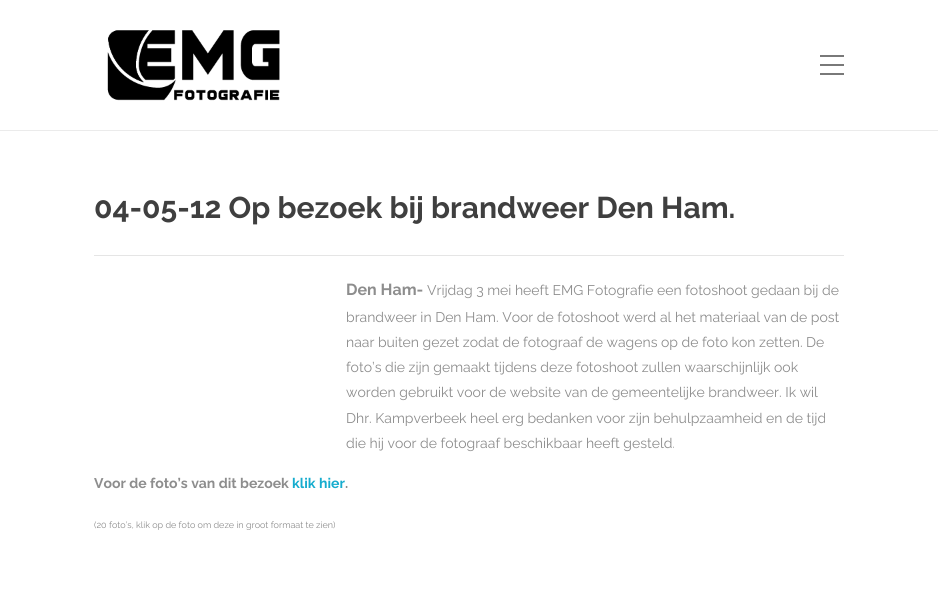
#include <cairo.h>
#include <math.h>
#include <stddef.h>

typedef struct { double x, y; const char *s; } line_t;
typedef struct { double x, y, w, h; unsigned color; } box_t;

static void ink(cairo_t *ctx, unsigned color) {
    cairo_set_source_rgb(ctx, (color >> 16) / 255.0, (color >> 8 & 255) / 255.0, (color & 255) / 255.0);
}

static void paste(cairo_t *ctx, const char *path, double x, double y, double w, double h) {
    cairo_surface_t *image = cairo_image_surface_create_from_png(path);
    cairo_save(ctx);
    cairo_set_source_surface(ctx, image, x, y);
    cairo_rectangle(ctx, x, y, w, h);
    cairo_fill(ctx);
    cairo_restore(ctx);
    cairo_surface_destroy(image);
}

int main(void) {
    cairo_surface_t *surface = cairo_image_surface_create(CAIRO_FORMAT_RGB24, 938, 590);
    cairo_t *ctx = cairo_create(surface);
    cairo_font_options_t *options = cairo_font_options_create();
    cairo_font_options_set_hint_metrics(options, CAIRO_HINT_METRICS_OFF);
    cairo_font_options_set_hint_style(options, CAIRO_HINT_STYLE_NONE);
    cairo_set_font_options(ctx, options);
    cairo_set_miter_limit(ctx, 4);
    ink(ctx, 0xFFFFFF);
    cairo_paint(ctx);
    ink(ctx, 0xEBEBEB);
    cairo_rectangle(ctx, 0, 130, 938, 1);
    cairo_fill(ctx);
    paste(ctx, "media/1.png", 107, 30, 173, 71);
    {
        static const box_t items[] = {
            {820, 64, 24, 2, 0x797979},
            {820, 55, 24, 2, 0x797979},
            {820, 73, 24, 2, 0x797979},
        };
        for (size_t i = 0; i < sizeof items / sizeof *items; i++) {
            ink(ctx, items[i].color);
            cairo_rectangle(ctx, items[i].x, items[i].y, items[i].w, items[i].h);
            cairo_fill(ctx);
        }
    }
    cairo_select_font_face(ctx, "Raleway", CAIRO_FONT_SLANT_NORMAL, CAIRO_FONT_WEIGHT_BOLD);
    cairo_set_font_size(ctx, 30);
    ink(ctx, 0x3F3F3F);
    cairo_move_to(ctx, 94, 218);
    cairo_show_text(ctx, "04-05-12 Op bezoek bij brandweer Den Ham.");
    ink(ctx, 0xE5E5E5);
    cairo_rectangle(ctx, 94, 255, 750, 1);
    cairo_fill(ctx);
    cairo_set_font_size(ctx, 16);
    ink(ctx, 0x8D8D8D);
    cairo_move_to(ctx, 346, 295);
    cairo_show_text(ctx, "Den Ham-");
    cairo_select_font_face(ctx, "Raleway", CAIRO_FONT_SLANT_NORMAL, CAIRO_FONT_WEIGHT_NORMAL);
    cairo_set_font_size(ctx, 14);
    {
        static const line_t items[] = {
            {427, 295, "Vrijdag 3 mei heeft EMG Fotografie een fotoshoot gedaan bij de"},
            {346, 322, "brandweer in Den Ham. Voor de fotoshoot werd al het materiaal van de post"},
            {346, 347, "naar buiten gezet zodat de fotograaf de wagens op de foto kon zetten. De"},
            {346, 372, "foto’s die zijn gemaakt tijdens deze fotoshoot zullen waarschijnlijk ook"},
            {346, 397, "worden gebruikt voor de website van de gemeentelijke brandweer. Ik wil"},
            {346, 423, "Dhr. Kampverbeek heel erg bedanken voor zijn behulpzaamheid en de tijd"},
            {346, 448, "die hij voor de fotograaf beschikbaar heeft gesteld."},
        };
        for (size_t i = 0; i < sizeof items / sizeof *items; i++) {
            cairo_move_to(ctx, items[i].x, items[i].y);
            cairo_show_text(ctx, items[i].s);
        }
    }
    cairo_select_font_face(ctx, "Raleway", CAIRO_FONT_SLANT_NORMAL, CAIRO_FONT_WEIGHT_BOLD);
    cairo_move_to(ctx, 94, 488);
    cairo_show_text(ctx, "Voor de foto’s van dit bezoek");
    ink(ctx, 0x16ACCE);
    cairo_move_to(ctx, 292, 488);
    cairo_show_text(ctx, "klik hier");
    ink(ctx, 0x8D8D8D);
    cairo_move_to(ctx, 345, 488);
    cairo_show_text(ctx, ".");
    cairo_select_font_face(ctx, "Raleway", CAIRO_FONT_SLANT_NORMAL, CAIRO_FONT_WEIGHT_NORMAL);
    cairo_set_font_size(ctx, 9);
    cairo_move_to(ctx, 94, 528);
    cairo_show_text(ctx, "(20 foto’s, klik op de foto om deze in groot formaat te zien)");
    cairo_surface_write_to_png(surface, "image.png");
    cairo_font_options_destroy(options);
    cairo_destroy(ctx);
    cairo_surface_destroy(surface);
    return 0;
}
